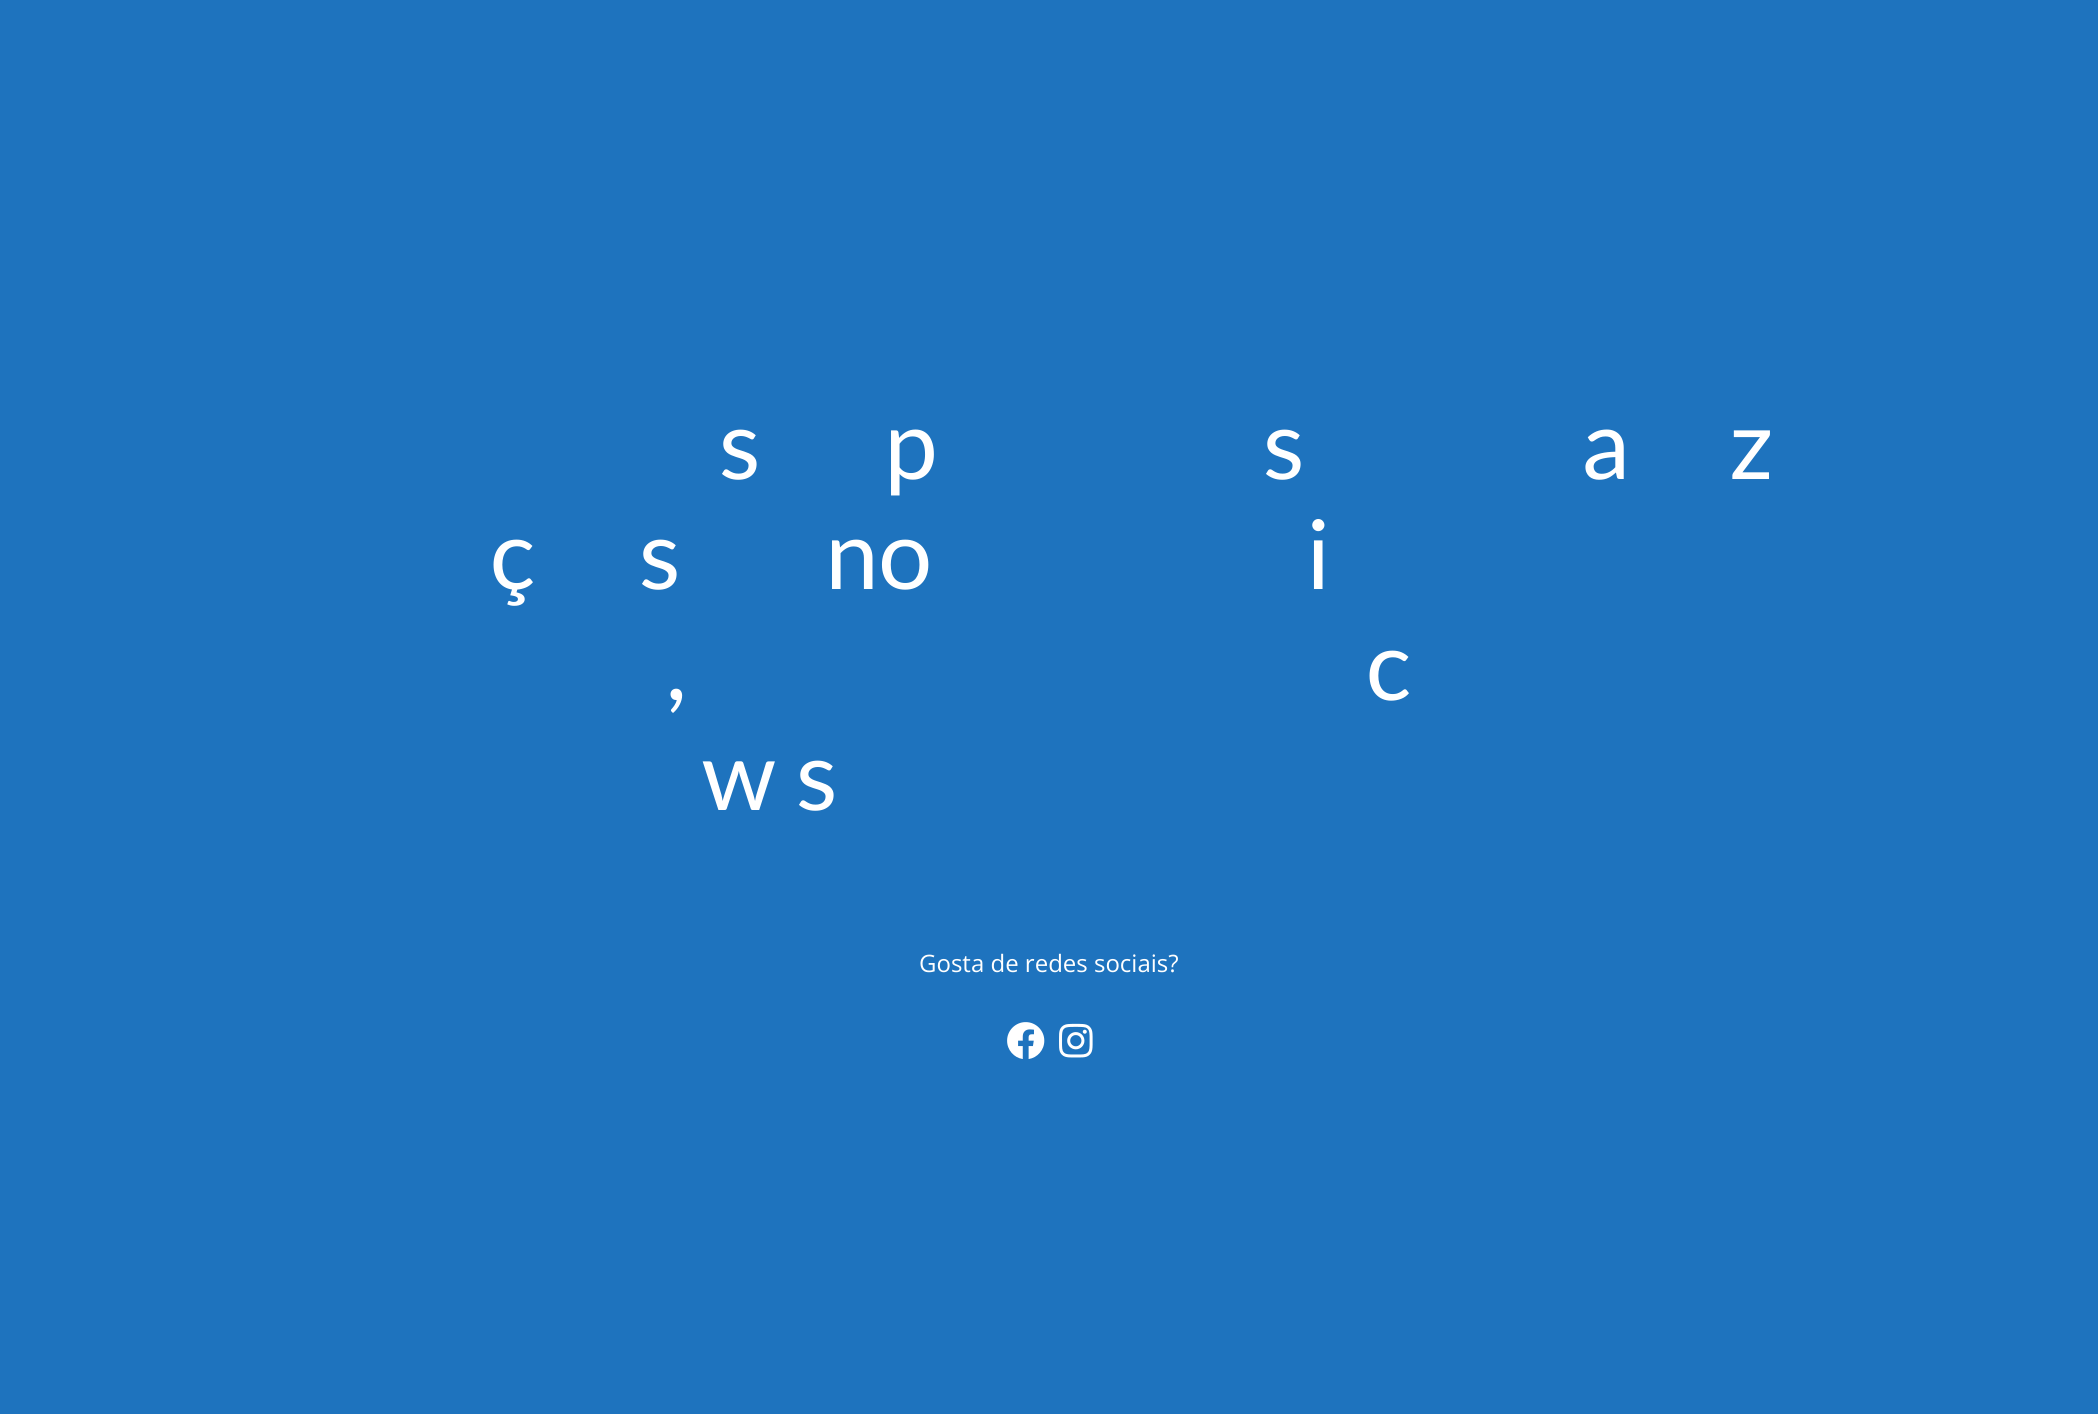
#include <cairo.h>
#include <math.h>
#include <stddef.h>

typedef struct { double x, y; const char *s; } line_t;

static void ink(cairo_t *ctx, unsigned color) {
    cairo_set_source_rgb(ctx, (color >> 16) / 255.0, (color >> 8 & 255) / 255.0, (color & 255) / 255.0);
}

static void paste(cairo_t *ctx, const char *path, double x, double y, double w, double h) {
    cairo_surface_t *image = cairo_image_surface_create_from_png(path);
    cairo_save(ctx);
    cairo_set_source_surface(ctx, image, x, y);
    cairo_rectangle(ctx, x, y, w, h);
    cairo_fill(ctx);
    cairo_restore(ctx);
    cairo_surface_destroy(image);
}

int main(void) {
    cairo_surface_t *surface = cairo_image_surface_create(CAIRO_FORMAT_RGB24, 2098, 1414);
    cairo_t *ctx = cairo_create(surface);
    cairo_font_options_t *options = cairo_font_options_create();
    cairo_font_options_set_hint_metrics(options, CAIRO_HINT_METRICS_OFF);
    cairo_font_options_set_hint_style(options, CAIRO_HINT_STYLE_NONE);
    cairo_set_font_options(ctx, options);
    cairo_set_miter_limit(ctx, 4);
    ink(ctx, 0x1E73BE);
    cairo_paint(ctx);
    cairo_select_font_face(ctx, "Lato", CAIRO_FONT_SLANT_NORMAL, CAIRO_FONT_WEIGHT_NORMAL);
    cairo_set_font_size(ctx, 96);
    ink(ctx, 0xFFFFFF);
    {
        static const line_t items[] = {
            {719, 479, "s"},
            {884, 479, "p"},
            {1263, 479, "s"},
            {1581, 479, "a"},
            {1729, 479, "z"},
            {490, 589, "ç"},
            {639, 589, "s"},
            {825, 589, "no"},
            {1306, 589, "i"},
            {666, 700, ","},
            {1366, 700, "c"},
            {702, 810, "w"},
            {796, 810, "s"},
        };
        for (size_t i = 0; i < sizeof items / sizeof *items; i++) {
            cairo_move_to(ctx, items[i].x, items[i].y);
            cairo_show_text(ctx, items[i].s);
        }
    }
    cairo_select_font_face(ctx, "Open Sans", CAIRO_FONT_SLANT_NORMAL, CAIRO_FONT_WEIGHT_NORMAL);
    cairo_set_font_size(ctx, 24);
    cairo_move_to(ctx, 919, 972);
    cairo_show_text(ctx, "Gosta de redes sociais?");
    paste(ctx, "media/1.png", 1007, 1022, 38, 37);
    paste(ctx, "media/2.png", 1059, 1023, 34, 35);
    cairo_surface_write_to_png(surface, "image.png");
    cairo_font_options_destroy(options);
    cairo_destroy(ctx);
    cairo_surface_destroy(surface);
    return 0;
}
